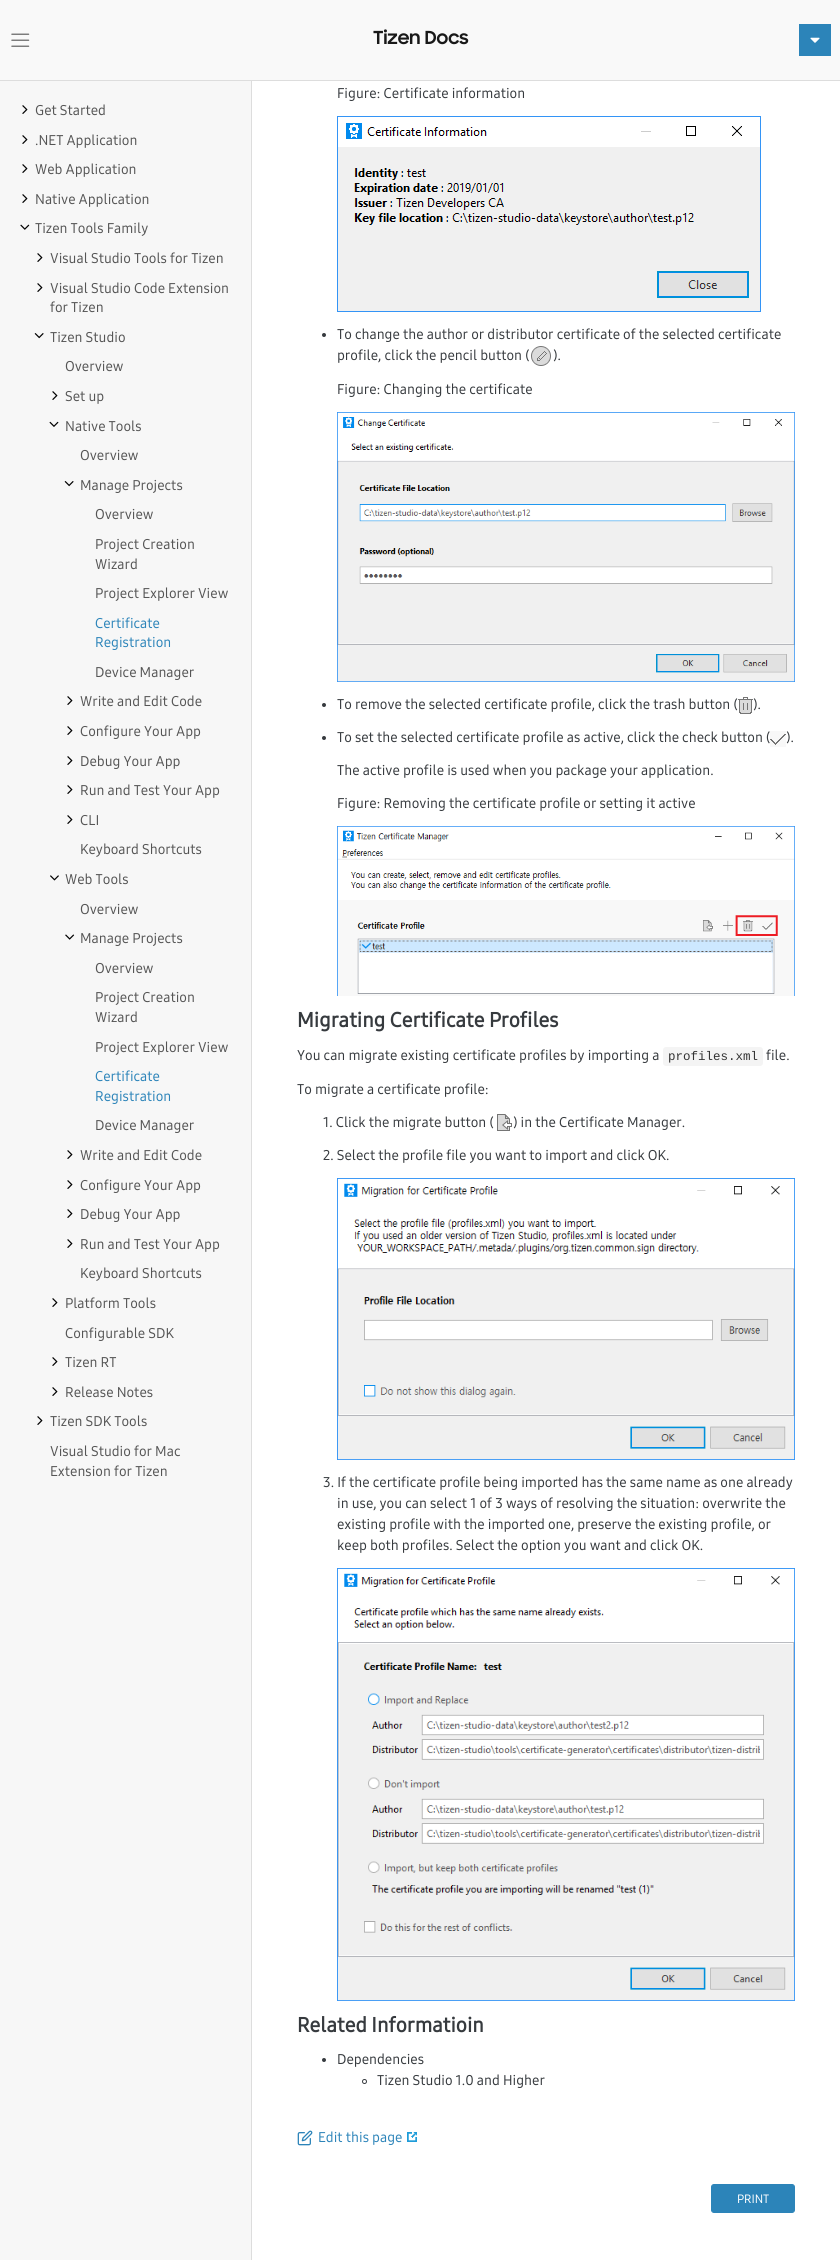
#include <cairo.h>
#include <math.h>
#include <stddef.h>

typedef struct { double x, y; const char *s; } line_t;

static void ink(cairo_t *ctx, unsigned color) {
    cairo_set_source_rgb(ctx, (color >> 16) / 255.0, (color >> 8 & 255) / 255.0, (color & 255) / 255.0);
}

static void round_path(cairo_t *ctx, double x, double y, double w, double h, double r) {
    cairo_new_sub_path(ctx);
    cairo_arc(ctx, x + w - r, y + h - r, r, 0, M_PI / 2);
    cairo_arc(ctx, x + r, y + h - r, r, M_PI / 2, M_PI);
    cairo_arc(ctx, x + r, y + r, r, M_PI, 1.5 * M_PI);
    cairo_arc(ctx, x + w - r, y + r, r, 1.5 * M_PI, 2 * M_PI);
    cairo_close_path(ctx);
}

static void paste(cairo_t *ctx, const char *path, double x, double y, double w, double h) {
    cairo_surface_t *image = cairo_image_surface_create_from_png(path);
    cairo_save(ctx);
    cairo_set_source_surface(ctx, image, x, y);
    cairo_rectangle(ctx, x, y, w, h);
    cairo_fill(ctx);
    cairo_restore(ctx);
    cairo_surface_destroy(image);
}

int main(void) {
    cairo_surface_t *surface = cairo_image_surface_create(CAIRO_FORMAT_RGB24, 840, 2260);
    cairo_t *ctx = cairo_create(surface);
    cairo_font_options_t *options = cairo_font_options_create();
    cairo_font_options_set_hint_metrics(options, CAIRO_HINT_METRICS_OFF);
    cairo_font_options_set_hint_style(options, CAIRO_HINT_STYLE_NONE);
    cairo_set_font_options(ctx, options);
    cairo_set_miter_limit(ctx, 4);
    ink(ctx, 0xFFFFFF);
    cairo_paint(ctx);
    ink(ctx, 0xF9F9F9);
    cairo_rectangle(ctx, 0, 0, 840, 80);
    cairo_fill(ctx);
    ink(ctx, 0xDDDDDD);
    cairo_rectangle(ctx, 0, 80, 840, 1);
    cairo_fill(ctx);
    paste(ctx, "media/1.png", 11, 33, 19, 14);
    cairo_select_font_face(ctx, "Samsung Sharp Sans", CAIRO_FONT_SLANT_NORMAL, CAIRO_FONT_WEIGHT_BOLD);
    cairo_set_font_size(ctx, 18);
    ink(ctx, 0x191919);
    cairo_move_to(ctx, 373, 44);
    cairo_show_text(ctx, "Tizen Docs");
    ink(ctx, 0x2C84B9);
    cairo_rectangle(ctx, 799, 24, 32, 32);
    cairo_fill(ctx);
    paste(ctx, "media/2.png", 810, 37, 10, 6);
    ink(ctx, 0xF7F7F7);
    cairo_rectangle(ctx, 0, 81, 251, 2179);
    cairo_fill(ctx);
    ink(ctx, 0xDDDDDD);
    cairo_rectangle(ctx, 251, 81, 1, 2179);
    cairo_fill(ctx);
    paste(ctx, "media/3.png", 22, 105, 6, 9);
    cairo_select_font_face(ctx, "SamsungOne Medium", CAIRO_FONT_SLANT_NORMAL, CAIRO_FONT_WEIGHT_NORMAL);
    cairo_set_font_size(ctx, 14);
    ink(ctx, 0x555555);
    cairo_move_to(ctx, 35, 115);
    cairo_show_text(ctx, "Get Started");
    paste(ctx, "media/3.png", 22, 135, 6, 9);
    cairo_move_to(ctx, 35, 145);
    cairo_show_text(ctx, ".NET Application");
    paste(ctx, "media/3.png", 22, 164, 6, 9);
    cairo_move_to(ctx, 35, 174);
    cairo_show_text(ctx, "Web Application");
    paste(ctx, "media/3.png", 22, 194, 6, 9);
    cairo_move_to(ctx, 35, 204);
    cairo_show_text(ctx, "Native Application");
    paste(ctx, "media/4.png", 20, 224, 10, 6);
    cairo_move_to(ctx, 35, 233);
    cairo_show_text(ctx, "Tizen Tools Family");
    paste(ctx, "media/3.png", 37, 253, 6, 9);
    cairo_move_to(ctx, 50, 263);
    cairo_show_text(ctx, "Visual Studio Tools for Tizen");
    paste(ctx, "media/3.png", 37, 283, 6, 9);
    cairo_move_to(ctx, 50, 293);
    cairo_show_text(ctx, "Visual Studio Code Extension");
    cairo_move_to(ctx, 50, 312);
    cairo_show_text(ctx, "for Tizen");
    paste(ctx, "media/5.png", 34, 333, 10, 6);
    cairo_move_to(ctx, 50, 342);
    cairo_show_text(ctx, "Tizen Studio");
    cairo_move_to(ctx, 65, 371);
    cairo_show_text(ctx, "Overview");
    paste(ctx, "media/3.png", 52, 391, 6, 9);
    cairo_move_to(ctx, 65, 401);
    cairo_show_text(ctx, "Set up");
    paste(ctx, "media/6.png", 49, 421, 10, 6);
    cairo_move_to(ctx, 65, 431);
    cairo_show_text(ctx, "Native Tools");
    cairo_move_to(ctx, 80, 460);
    cairo_show_text(ctx, "Overview");
    paste(ctx, "media/7.png", 64, 481, 10, 6);
    {
        static const line_t items[] = {
            {80, 490, "Manage Projects"},
            {95, 519, "Overview"},
            {95, 549, "Project Creation"},
            {95, 569, "Wizard"},
            {95, 598, "Project Explorer View"},
        };
        for (size_t i = 0; i < sizeof items / sizeof *items; i++) {
            cairo_move_to(ctx, items[i].x, items[i].y);
            cairo_show_text(ctx, items[i].s);
        }
    }
    ink(ctx, 0x2C84B9);
    cairo_move_to(ctx, 95, 628);
    cairo_show_text(ctx, "Certificate");
    cairo_move_to(ctx, 95, 647);
    cairo_show_text(ctx, "Registration");
    ink(ctx, 0x555555);
    cairo_move_to(ctx, 95, 677);
    cairo_show_text(ctx, "Device Manager");
    paste(ctx, "media/3.png", 67, 696, 6, 9);
    cairo_move_to(ctx, 80, 706);
    cairo_show_text(ctx, "Write and Edit Code");
    paste(ctx, "media/3.png", 67, 726, 6, 9);
    cairo_move_to(ctx, 80, 736);
    cairo_show_text(ctx, "Configure Your App");
    paste(ctx, "media/3.png", 67, 756, 6, 9);
    cairo_move_to(ctx, 80, 766);
    cairo_show_text(ctx, "Debug Your App");
    paste(ctx, "media/3.png", 67, 785, 6, 9);
    cairo_move_to(ctx, 80, 795);
    cairo_show_text(ctx, "Run and Test Your App");
    paste(ctx, "media/3.png", 67, 815, 6, 9);
    cairo_move_to(ctx, 80, 825);
    cairo_show_text(ctx, "CLI");
    cairo_move_to(ctx, 80, 854);
    cairo_show_text(ctx, "Keyboard Shortcuts");
    paste(ctx, "media/8.png", 50, 875, 9, 6);
    cairo_move_to(ctx, 65, 884);
    cairo_show_text(ctx, "Web Tools");
    cairo_move_to(ctx, 80, 914);
    cairo_show_text(ctx, "Overview");
    paste(ctx, "media/9.png", 65, 934, 10, 6);
    {
        static const line_t items[] = {
            {80, 943, "Manage Projects"},
            {95, 973, "Overview"},
            {95, 1002, "Project Creation"},
            {95, 1022, "Wizard"},
            {95, 1052, "Project Explorer View"},
        };
        for (size_t i = 0; i < sizeof items / sizeof *items; i++) {
            cairo_move_to(ctx, items[i].x, items[i].y);
            cairo_show_text(ctx, items[i].s);
        }
    }
    ink(ctx, 0x2C84B9);
    cairo_move_to(ctx, 95, 1081);
    cairo_show_text(ctx, "Certificate");
    cairo_move_to(ctx, 95, 1101);
    cairo_show_text(ctx, "Registration");
    ink(ctx, 0x555555);
    cairo_move_to(ctx, 95, 1130);
    cairo_show_text(ctx, "Device Manager");
    paste(ctx, "media/3.png", 67, 1150, 6, 9);
    cairo_move_to(ctx, 80, 1160);
    cairo_show_text(ctx, "Write and Edit Code");
    paste(ctx, "media/3.png", 67, 1180, 6, 9);
    cairo_move_to(ctx, 80, 1190);
    cairo_show_text(ctx, "Configure Your App");
    paste(ctx, "media/3.png", 67, 1209, 6, 9);
    cairo_move_to(ctx, 80, 1219);
    cairo_show_text(ctx, "Debug Your App");
    paste(ctx, "media/3.png", 67, 1239, 6, 9);
    cairo_move_to(ctx, 80, 1249);
    cairo_show_text(ctx, "Run and Test Your App");
    cairo_move_to(ctx, 80, 1278);
    cairo_show_text(ctx, "Keyboard Shortcuts");
    paste(ctx, "media/3.png", 52, 1298, 6, 9);
    cairo_move_to(ctx, 65, 1308);
    cairo_show_text(ctx, "Platform Tools");
    cairo_move_to(ctx, 65, 1338);
    cairo_show_text(ctx, "Configurable SDK");
    paste(ctx, "media/3.png", 52, 1357, 6, 9);
    cairo_move_to(ctx, 65, 1367);
    cairo_show_text(ctx, "Tizen RT");
    paste(ctx, "media/3.png", 52, 1387, 6, 9);
    cairo_move_to(ctx, 65, 1397);
    cairo_show_text(ctx, "Release Notes");
    paste(ctx, "media/3.png", 37, 1416, 6, 9);
    {
        static const line_t items[] = {
            {50, 1426, "Tizen SDK Tools"},
            {50, 1456, "Visual Studio for Mac"},
            {50, 1476, "Extension for Tizen"},
        };
        for (size_t i = 0; i < sizeof items / sizeof *items; i++) {
            cairo_move_to(ctx, items[i].x, items[i].y);
            cairo_show_text(ctx, items[i].s);
        }
    }
    ink(ctx, 0x363A3E);
    cairo_move_to(ctx, 337, 98);
    cairo_show_text(ctx, "Figure: Certificate information");
    paste(ctx, "media/10.png", 337, 116, 424, 196);
    cairo_arc(ctx, 324, 335, 2, 0, 2 * M_PI);
    cairo_fill(ctx);
    cairo_move_to(ctx, 337, 339);
    cairo_show_text(ctx, "To change the author or distributor certificate of the selected certificate");
    cairo_move_to(ctx, 337, 360);
    cairo_show_text(ctx, "profile, click the pencil button (");
    paste(ctx, "media/11.png", 531, 346, 20, 20);
    cairo_move_to(ctx, 553, 360);
    cairo_show_text(ctx, ").");
    cairo_move_to(ctx, 337, 394);
    cairo_show_text(ctx, "Figure: Changing the certificate");
    paste(ctx, "media/12.png", 337, 412, 458, 270);
    cairo_arc(ctx, 324, 705, 2, 0, 2 * M_PI);
    cairo_fill(ctx);
    cairo_move_to(ctx, 337, 709);
    cairo_show_text(ctx, "To remove the selected certificate profile, click the trash button (");
    paste(ctx, "media/13.png", 738, 697, 15, 17);
    cairo_move_to(ctx, 753, 709);
    cairo_show_text(ctx, ").");
    cairo_new_path(ctx);
    cairo_arc(ctx, 324, 738, 2, 0, 2 * M_PI);
    cairo_fill(ctx);
    cairo_move_to(ctx, 337, 742);
    cairo_show_text(ctx, "To set the selected certificate profile as active, click the check button (");
    paste(ctx, "media/14.png", 770, 731, 16, 16);
    {
        static const line_t items[] = {
            {786, 742, ")."},
            {337, 775, "The active profile is used when you package your application."},
            {337, 808, "Figure: Removing the certificate profile or setting it active"},
        };
        for (size_t i = 0; i < sizeof items / sizeof *items; i++) {
            cairo_move_to(ctx, items[i].x, items[i].y);
            cairo_show_text(ctx, items[i].s);
        }
    }
    paste(ctx, "media/15.png", 337, 826, 458, 170);
    cairo_select_font_face(ctx, "SamsungOne", CAIRO_FONT_SLANT_NORMAL, CAIRO_FONT_WEIGHT_BOLD);
    cairo_set_font_size(ctx, 20.4);
    cairo_move_to(ctx, 297, 1027);
    cairo_show_text(ctx, "Migrating Certificate Profiles");
    cairo_select_font_face(ctx, "SamsungOne Medium", CAIRO_FONT_SLANT_NORMAL, CAIRO_FONT_WEIGHT_NORMAL);
    cairo_set_font_size(ctx, 14);
    cairo_move_to(ctx, 297, 1060);
    cairo_show_text(ctx, "You can migrate existing certificate profiles by importing a");
    ink(ctx, 0xF4F4F4);
    round_path(ctx, 663, 1047, 100, 19, 3);
    cairo_fill(ctx);
    cairo_select_font_face(ctx, "Liberation Mono", CAIRO_FONT_SLANT_NORMAL, CAIRO_FONT_WEIGHT_NORMAL);
    cairo_set_font_size(ctx, 12.5);
    ink(ctx, 0x333333);
    cairo_move_to(ctx, 668, 1060);
    cairo_show_text(ctx, "profiles.xml");
    cairo_select_font_face(ctx, "SamsungOne Medium", CAIRO_FONT_SLANT_NORMAL, CAIRO_FONT_WEIGHT_NORMAL);
    cairo_set_font_size(ctx, 14);
    ink(ctx, 0x363A3E);
    {
        static const line_t items[] = {
            {766, 1060, "file."},
            {297, 1094, "To migrate a certificate profile:"},
            {323, 1127, "1. Click the migrate button ("},
        };
        for (size_t i = 0; i < sizeof items / sizeof *items; i++) {
            cairo_move_to(ctx, items[i].x, items[i].y);
            cairo_show_text(ctx, items[i].s);
        }
    }
    paste(ctx, "media/16.png", 497, 1114, 15, 17);
    cairo_move_to(ctx, 513, 1127);
    cairo_show_text(ctx, ") in the Certificate Manager.");
    cairo_move_to(ctx, 323, 1160);
    cairo_show_text(ctx, "2. Select the profile file you want to import and click OK.");
    paste(ctx, "media/17.png", 337, 1178, 458, 282);
    {
        static const line_t items[] = {
            {323, 1487, "3. If the certificate profile being imported has the same name as one already"},
            {337, 1508, "in use, you can select 1 of 3 ways of resolving the situation: overwrite the"},
            {337, 1529, "existing profile with the imported one, preserve the existing profile, or"},
            {337, 1550, "keep both profiles. Select the option you want and click OK."},
        };
        for (size_t i = 0; i < sizeof items / sizeof *items; i++) {
            cairo_move_to(ctx, items[i].x, items[i].y);
            cairo_show_text(ctx, items[i].s);
        }
    }
    paste(ctx, "media/18.png", 337, 1568, 458, 433);
    cairo_select_font_face(ctx, "SamsungOne", CAIRO_FONT_SLANT_NORMAL, CAIRO_FONT_WEIGHT_BOLD);
    cairo_set_font_size(ctx, 20.4);
    cairo_move_to(ctx, 297, 2032);
    cairo_show_text(ctx, "Related Informatioin");
    cairo_new_path(ctx);
    cairo_arc(ctx, 324, 2060, 2, 0, 2 * M_PI);
    cairo_fill(ctx);
    cairo_select_font_face(ctx, "SamsungOne Medium", CAIRO_FONT_SLANT_NORMAL, CAIRO_FONT_WEIGHT_NORMAL);
    cairo_set_font_size(ctx, 14);
    cairo_move_to(ctx, 337, 2064);
    cairo_show_text(ctx, "Dependencies");
    cairo_new_path(ctx);
    cairo_arc(ctx, 364.5, 2081.5, 2, 0, 2 * M_PI);
    cairo_set_line_width(ctx, 1);
    cairo_stroke(ctx);
    cairo_move_to(ctx, 377, 2085);
    cairo_show_text(ctx, "Tizen Studio 1.0 and Higher");
    paste(ctx, "media/19.png", 297, 2130, 16, 16);
    ink(ctx, 0x2C84B9);
    cairo_move_to(ctx, 318, 2142);
    cairo_show_text(ctx, "Edit this page");
    paste(ctx, "media/20.png", 407, 2132, 10, 10);
    round_path(ctx, 711.5, 2184.5, 83, 28, 2.5);
    cairo_fill_preserve(ctx);
    cairo_stroke(ctx);
    cairo_set_font_size(ctx, 12);
    ink(ctx, 0xFFFFFF);
    cairo_move_to(ctx, 737, 2203);
    cairo_show_text(ctx, "PRINT");
    cairo_surface_write_to_png(surface, "image.png");
    cairo_font_options_destroy(options);
    cairo_destroy(ctx);
    cairo_surface_destroy(surface);
    return 0;
}
